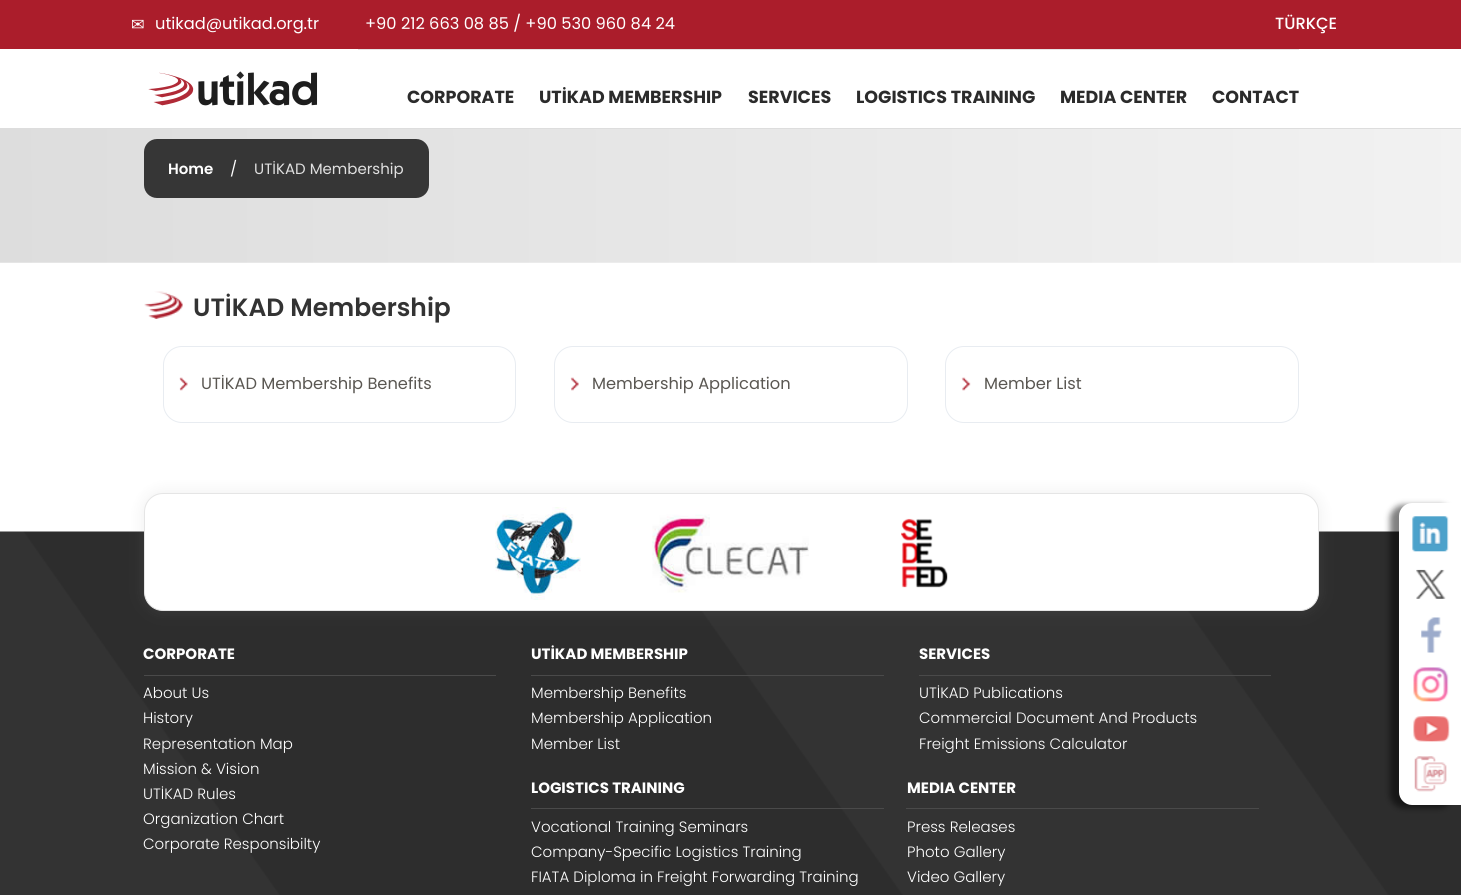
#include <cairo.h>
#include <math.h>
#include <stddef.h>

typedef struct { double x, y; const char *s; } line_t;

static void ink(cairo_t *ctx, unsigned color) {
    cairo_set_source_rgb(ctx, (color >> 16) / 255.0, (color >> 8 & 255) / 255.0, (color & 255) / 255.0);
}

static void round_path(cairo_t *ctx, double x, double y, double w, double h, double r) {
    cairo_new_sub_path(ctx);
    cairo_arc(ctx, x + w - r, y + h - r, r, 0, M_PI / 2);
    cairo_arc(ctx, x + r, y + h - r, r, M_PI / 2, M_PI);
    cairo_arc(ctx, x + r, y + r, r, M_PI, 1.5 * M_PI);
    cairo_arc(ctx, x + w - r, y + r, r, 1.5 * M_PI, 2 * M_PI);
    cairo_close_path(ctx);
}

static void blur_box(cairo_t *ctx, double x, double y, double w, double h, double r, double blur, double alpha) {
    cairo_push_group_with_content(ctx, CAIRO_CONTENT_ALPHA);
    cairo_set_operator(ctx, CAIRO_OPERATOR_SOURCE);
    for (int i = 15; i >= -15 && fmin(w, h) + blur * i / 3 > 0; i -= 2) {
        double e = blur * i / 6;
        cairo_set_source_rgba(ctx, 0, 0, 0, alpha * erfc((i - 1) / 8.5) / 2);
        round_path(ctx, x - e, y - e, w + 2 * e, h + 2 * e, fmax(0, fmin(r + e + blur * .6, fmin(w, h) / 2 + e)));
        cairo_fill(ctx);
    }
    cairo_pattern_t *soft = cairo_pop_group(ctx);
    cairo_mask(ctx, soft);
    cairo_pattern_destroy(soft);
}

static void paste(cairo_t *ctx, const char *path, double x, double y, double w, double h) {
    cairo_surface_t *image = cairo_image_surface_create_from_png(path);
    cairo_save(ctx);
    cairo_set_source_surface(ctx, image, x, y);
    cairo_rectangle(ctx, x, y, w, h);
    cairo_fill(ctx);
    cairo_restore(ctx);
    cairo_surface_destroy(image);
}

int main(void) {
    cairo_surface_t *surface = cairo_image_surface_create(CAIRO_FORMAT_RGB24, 1461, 895);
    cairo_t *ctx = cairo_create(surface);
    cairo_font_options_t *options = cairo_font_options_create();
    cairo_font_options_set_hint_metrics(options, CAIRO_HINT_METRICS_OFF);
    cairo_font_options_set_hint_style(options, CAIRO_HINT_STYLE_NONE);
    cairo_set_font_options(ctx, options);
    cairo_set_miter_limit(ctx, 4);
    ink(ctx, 0xFFFFFF);
    cairo_paint(ctx);
    ink(ctx, 0xDDDDDD);
    cairo_rectangle(ctx, 0, 128, 1461, 1);
    cairo_fill(ctx);
    ink(ctx, 0xAB1D2B);
    cairo_rectangle(ctx, 0, 0, 1461, 49);
    cairo_fill(ctx);
    cairo_select_font_face(ctx, "DejaVu Sans", CAIRO_FONT_SLANT_NORMAL, CAIRO_FONT_WEIGHT_NORMAL);
    cairo_set_font_size(ctx, 16.25);
    ink(ctx, 0xFFFFFF);
    cairo_move_to(ctx, 131, 30);
    cairo_show_text(ctx, "✉");
    cairo_select_font_face(ctx, "Poppins", CAIRO_FONT_SLANT_NORMAL, CAIRO_FONT_WEIGHT_NORMAL);
    cairo_move_to(ctx, 155, 29);
    cairo_show_text(ctx, "utikad@utikad.org.tr");
    cairo_move_to(ctx, 365, 29);
    cairo_show_text(ctx, "+90 212 663 08 85 / +90 530 960 84 24");
    cairo_select_font_face(ctx, "Poppins Medium", CAIRO_FONT_SLANT_NORMAL, CAIRO_FONT_WEIGHT_NORMAL);
    cairo_move_to(ctx, 1275, 29);
    cairo_show_text(ctx, "TÜRKÇE");
    paste(ctx, "media/1.png", 148, 71, 170, 35);
    ink(ctx, 0xE5E5E5);
    cairo_rectangle(ctx, 358, 49, 941, 1);
    cairo_fill(ctx);
    cairo_select_font_face(ctx, "Poppins", CAIRO_FONT_SLANT_NORMAL, CAIRO_FONT_WEIGHT_BOLD);
    cairo_set_font_size(ctx, 17.5);
    ink(ctx, 0x2B2B2B);
    {
        static const line_t items[] = {
            {407, 103, "CORPORATE"},
            {539, 103, "UTİKAD MEMBERSHIP"},
            {748, 103, "SERVICES"},
            {856, 103, "LOGISTICS TRAINING"},
            {1060, 103, "MEDIA CENTER"},
            {1212, 103, "CONTACT"},
        };
        for (size_t i = 0; i < sizeof items / sizeof *items; i++) {
            cairo_move_to(ctx, items[i].x, items[i].y);
            cairo_show_text(ctx, items[i].s);
        }
    }
    paste(ctx, "media/2.png", 0, 129, 1461, 134);
    ink(ctx, 0x363636);
    round_path(ctx, 144, 139, 285, 59, 13);
    cairo_fill(ctx);
    cairo_select_font_face(ctx, "Poppins SemiBold", CAIRO_FONT_SLANT_NORMAL, CAIRO_FONT_WEIGHT_NORMAL);
    cairo_set_font_size(ctx, 15);
    ink(ctx, 0xFFFFFF);
    cairo_move_to(ctx, 168, 174);
    cairo_show_text(ctx, "Home");
    cairo_select_font_face(ctx, "Poppins", CAIRO_FONT_SLANT_NORMAL, CAIRO_FONT_WEIGHT_NORMAL);
    cairo_move_to(ctx, 230, 174);
    cairo_show_text(ctx, "/");
    ink(ctx, 0xE0E0E0);
    cairo_move_to(ctx, 254, 174);
    cairo_show_text(ctx, "UTİKAD Membership");
    paste(ctx, "media/3.png", 144, 291, 39, 28);
    cairo_select_font_face(ctx, "Poppins SemiBold", CAIRO_FONT_SLANT_NORMAL, CAIRO_FONT_WEIGHT_NORMAL);
    cairo_set_font_size(ctx, 25);
    ink(ctx, 0x333333);
    cairo_move_to(ctx, 193, 316);
    cairo_show_text(ctx, "UTİKAD Membership");
    paste(ctx, "media/4.png", 179, 377, 9, 14);
    round_path(ctx, 163.5, 346.5, 352, 76, 18.5);
    ink(ctx, 0xE8ECF1);
    cairo_set_line_width(ctx, 1);
    cairo_stroke(ctx);
    cairo_select_font_face(ctx, "Poppins", CAIRO_FONT_SLANT_NORMAL, CAIRO_FONT_WEIGHT_NORMAL);
    cairo_set_font_size(ctx, 16.25);
    ink(ctx, 0x5A5752);
    cairo_move_to(ctx, 201, 389);
    cairo_show_text(ctx, "UTİKAD Membership Benefits");
    paste(ctx, "media/5.png", 570, 377, 9, 14);
    round_path(ctx, 554.5, 346.5, 353, 76, 18.5);
    ink(ctx, 0xE8ECF1);
    cairo_stroke(ctx);
    ink(ctx, 0x5A5752);
    cairo_move_to(ctx, 592, 389);
    cairo_show_text(ctx, "Membership Application");
    paste(ctx, "media/6.png", 961, 377, 10, 14);
    round_path(ctx, 945.5, 346.5, 353, 76, 18.5);
    ink(ctx, 0xE8ECF1);
    cairo_stroke(ctx);
    ink(ctx, 0x5A5752);
    cairo_move_to(ctx, 984, 389);
    cairo_show_text(ctx, "Member List");
    paste(ctx, "media/16.png", 0, 531, 1461, 364);
    ink(ctx, 0x929292);
    blur_box(ctx, 140, 489, 1183, 126, 23, 6, 0.1);
    ink(ctx, 0xFFFFFF);
    round_path(ctx, 144.5, 493.5, 1174, 117, 18.5);
    cairo_fill_preserve(ctx);
    ink(ctx, 0xE5E5E5);
    cairo_stroke(ctx);
    paste(ctx, "media/7.png", 495, 507, 86, 93);
    paste(ctx, "media/8.png", 652, 514, 157, 79);
    paste(ctx, "media/9.png", 901, 518, 47, 70);
    ink(ctx, 0x000000);
    blur_box(ctx, 1390, 505, 63, 303, 13, 3, 0.5);
    ink(ctx, 0xFFFFFF);
    cairo_new_path(ctx);
    cairo_move_to(ctx, 1412, 503);
    cairo_line_to(ctx, 1461, 503);
    cairo_line_to(ctx, 1461, 805);
    cairo_line_to(ctx, 1412, 805);
    cairo_curve_to(ctx, 1405, 805, 1399, 799, 1399, 792);
    cairo_line_to(ctx, 1399, 516);
    cairo_curve_to(ctx, 1399, 509, 1405, 503, 1412, 503);
    cairo_close_path(ctx);
    cairo_fill(ctx);
    paste(ctx, "media/10.png", 1412, 516, 37, 36);
    paste(ctx, "media/11.png", 1416, 569, 30, 30);
    paste(ctx, "media/12.png", 1421, 617, 21, 36);
    paste(ctx, "media/13.png", 1413, 667, 36, 35);
    paste(ctx, "media/14.png", 1413, 716, 37, 26);
    paste(ctx, "media/15.png", 1414, 756, 33, 36);
    ink(ctx, 0x4A4A4A);
    cairo_rectangle(ctx, 144, 675, 352, 1);
    cairo_fill(ctx);
    cairo_select_font_face(ctx, "Poppins", CAIRO_FONT_SLANT_NORMAL, CAIRO_FONT_WEIGHT_BOLD);
    cairo_set_font_size(ctx, 15);
    ink(ctx, 0xFFFFFF);
    cairo_move_to(ctx, 143, 659);
    cairo_show_text(ctx, "CORPORATE");
    cairo_select_font_face(ctx, "Poppins Light", CAIRO_FONT_SLANT_NORMAL, CAIRO_FONT_WEIGHT_NORMAL);
    {
        static const line_t items[] = {
            {143, 698, "About Us"},
            {143, 723, "History"},
            {143, 749, "Representation Map"},
            {143, 774, "Mission & Vision"},
            {143, 799, "UTİKAD Rules"},
            {143, 824, "Organization Chart"},
            {143, 849, "Corporate Responsibilty"},
        };
        for (size_t i = 0; i < sizeof items / sizeof *items; i++) {
            cairo_move_to(ctx, items[i].x, items[i].y);
            cairo_show_text(ctx, items[i].s);
        }
    }
    ink(ctx, 0x4A4A4A);
    cairo_rectangle(ctx, 531, 675, 353, 1);
    cairo_fill(ctx);
    cairo_select_font_face(ctx, "Poppins", CAIRO_FONT_SLANT_NORMAL, CAIRO_FONT_WEIGHT_BOLD);
    ink(ctx, 0xFFFFFF);
    cairo_move_to(ctx, 531, 659);
    cairo_show_text(ctx, "UTİKAD MEMBERSHIP");
    cairo_select_font_face(ctx, "Poppins Light", CAIRO_FONT_SLANT_NORMAL, CAIRO_FONT_WEIGHT_NORMAL);
    {
        static const line_t items[] = {
            {531, 698, "Membership Benefits"},
            {531, 723, "Membership Application"},
            {531, 749, "Member List"},
        };
        for (size_t i = 0; i < sizeof items / sizeof *items; i++) {
            cairo_move_to(ctx, items[i].x, items[i].y);
            cairo_show_text(ctx, items[i].s);
        }
    }
    ink(ctx, 0x4A4A4A);
    cairo_rectangle(ctx, 919, 675, 352, 1);
    cairo_fill(ctx);
    cairo_select_font_face(ctx, "Poppins", CAIRO_FONT_SLANT_NORMAL, CAIRO_FONT_WEIGHT_BOLD);
    ink(ctx, 0xFFFFFF);
    cairo_move_to(ctx, 919, 659);
    cairo_show_text(ctx, "SERVICES");
    cairo_select_font_face(ctx, "Poppins Light", CAIRO_FONT_SLANT_NORMAL, CAIRO_FONT_WEIGHT_NORMAL);
    {
        static const line_t items[] = {
            {919, 698, "UTİKAD Publications"},
            {919, 723, "Commercial Document And Products"},
            {919, 749, "Freight Emissions Calculator"},
        };
        for (size_t i = 0; i < sizeof items / sizeof *items; i++) {
            cairo_move_to(ctx, items[i].x, items[i].y);
            cairo_show_text(ctx, items[i].s);
        }
    }
    ink(ctx, 0x4A4A4A);
    cairo_rectangle(ctx, 531, 808, 353, 1);
    cairo_fill(ctx);
    cairo_select_font_face(ctx, "Poppins", CAIRO_FONT_SLANT_NORMAL, CAIRO_FONT_WEIGHT_BOLD);
    ink(ctx, 0xFFFFFF);
    cairo_move_to(ctx, 531, 793);
    cairo_show_text(ctx, "LOGISTICS TRAINING");
    cairo_select_font_face(ctx, "Poppins Light", CAIRO_FONT_SLANT_NORMAL, CAIRO_FONT_WEIGHT_NORMAL);
    {
        static const line_t items[] = {
            {531, 832, "Vocational Training Seminars"},
            {531, 857, "Company-Specific Logistics Training"},
            {531, 882, "FIATA Diploma in Freight Forwarding Training"},
        };
        for (size_t i = 0; i < sizeof items / sizeof *items; i++) {
            cairo_move_to(ctx, items[i].x, items[i].y);
            cairo_show_text(ctx, items[i].s);
        }
    }
    ink(ctx, 0x4A4A4A);
    cairo_rectangle(ctx, 906, 808, 353, 1);
    cairo_fill(ctx);
    cairo_select_font_face(ctx, "Poppins", CAIRO_FONT_SLANT_NORMAL, CAIRO_FONT_WEIGHT_BOLD);
    ink(ctx, 0xFFFFFF);
    cairo_move_to(ctx, 907, 793);
    cairo_show_text(ctx, "MEDIA CENTER");
    cairo_select_font_face(ctx, "Poppins Light", CAIRO_FONT_SLANT_NORMAL, CAIRO_FONT_WEIGHT_NORMAL);
    {
        static const line_t items[] = {
            {907, 832, "Press Releases"},
            {907, 857, "Photo Gallery"},
            {907, 882, "Video Gallery"},
        };
        for (size_t i = 0; i < sizeof items / sizeof *items; i++) {
            cairo_move_to(ctx, items[i].x, items[i].y);
            cairo_show_text(ctx, items[i].s);
        }
    }
    cairo_surface_write_to_png(surface, "image.png");
    cairo_font_options_destroy(options);
    cairo_destroy(ctx);
    cairo_surface_destroy(surface);
    return 0;
}
